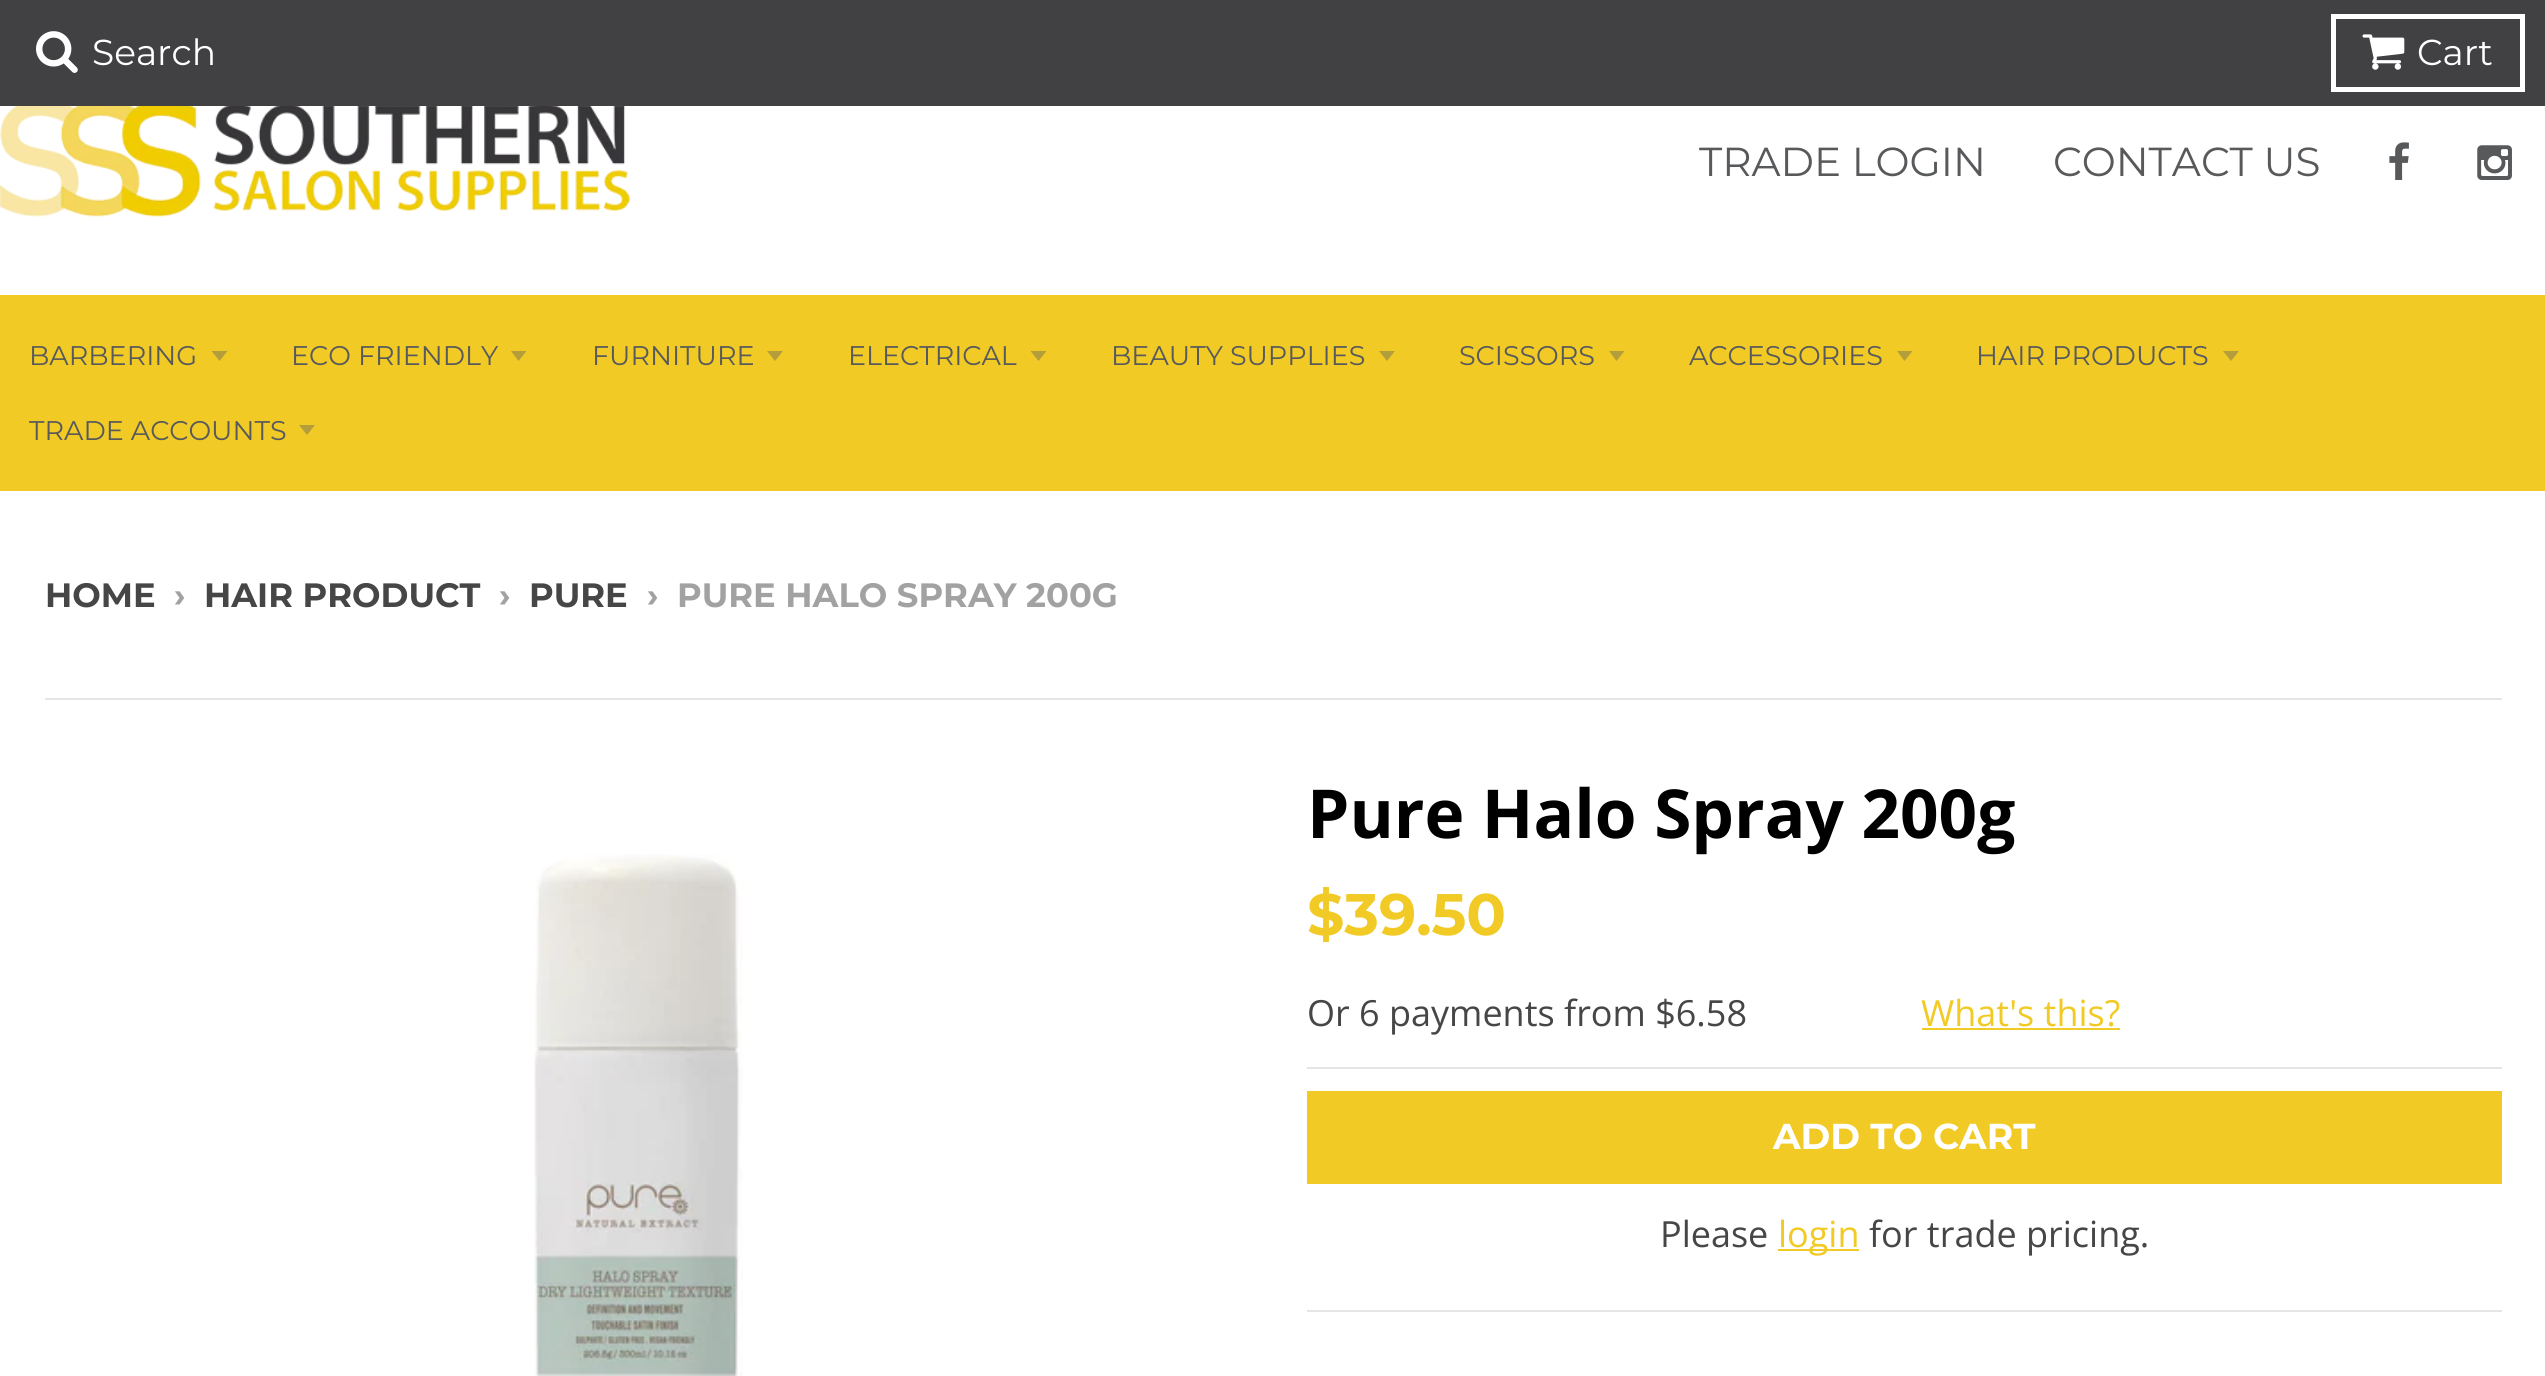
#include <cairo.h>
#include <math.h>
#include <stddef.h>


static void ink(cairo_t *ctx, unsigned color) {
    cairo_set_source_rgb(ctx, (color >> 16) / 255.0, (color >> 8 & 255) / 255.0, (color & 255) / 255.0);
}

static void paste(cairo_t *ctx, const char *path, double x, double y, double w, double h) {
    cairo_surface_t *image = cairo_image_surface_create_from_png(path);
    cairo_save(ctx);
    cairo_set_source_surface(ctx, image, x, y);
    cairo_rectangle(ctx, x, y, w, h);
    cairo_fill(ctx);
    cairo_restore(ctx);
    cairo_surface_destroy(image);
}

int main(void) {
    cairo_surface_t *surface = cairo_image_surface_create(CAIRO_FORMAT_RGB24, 2545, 1376);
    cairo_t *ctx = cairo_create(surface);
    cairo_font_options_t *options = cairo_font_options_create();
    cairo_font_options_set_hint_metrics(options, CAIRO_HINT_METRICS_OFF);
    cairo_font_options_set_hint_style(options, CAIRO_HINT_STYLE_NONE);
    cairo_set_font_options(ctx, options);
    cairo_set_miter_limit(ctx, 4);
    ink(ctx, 0xFFFFFF);
    cairo_paint(ctx);
    ink(ctx, 0x414042);
    cairo_rectangle(ctx, 0, 0, 2545, 106);
    cairo_fill(ctx);
    paste(ctx, "media/1.png", 36, 31, 42, 42);
    cairo_select_font_face(ctx, "Montserrat", CAIRO_FONT_SLANT_NORMAL, CAIRO_FONT_WEIGHT_NORMAL);
    cairo_set_font_size(ctx, 36);
    ink(ctx, 0xFFFFFF);
    cairo_move_to(ctx, 92, 65);
    cairo_show_text(ctx, "Search");
    cairo_rectangle(ctx, 2333.5, 16.5, 189, 73);
    cairo_set_line_width(ctx, 5);
    cairo_stroke(ctx);
    paste(ctx, "media/2.png", 2362, 34, 43, 36);
    cairo_move_to(ctx, 2417, 65);
    cairo_show_text(ctx, "Cart");
    paste(ctx, "media/3.png", 0, 106, 630, 111);
    cairo_set_font_size(ctx, 40.5);
    ink(ctx, 0x58595B);
    cairo_move_to(ctx, 1699, 176);
    cairo_show_text(ctx, "TRADE LOGIN");
    cairo_move_to(ctx, 2053, 176);
    cairo_show_text(ctx, "CONTACT US");
    paste(ctx, "media/4.png", 2389, 142, 20, 38);
    paste(ctx, "media/5.png", 2477, 145, 35, 35);
    ink(ctx, 0xF1CA25);
    cairo_rectangle(ctx, 0, 295, 2545, 196);
    cairo_fill(ctx);
    cairo_set_font_size(ctx, 27);
    ink(ctx, 0x58595B);
    cairo_move_to(ctx, 29, 365);
    cairo_show_text(ctx, "BARBERING");
    ink(ctx, 0xB49D3B);
    cairo_new_path(ctx);
    cairo_move_to(ctx, 211.5, 351);
    cairo_line_to(ctx, 219.5, 361);
    cairo_line_to(ctx, 227.5, 351);
    cairo_close_path(ctx);
    cairo_fill(ctx);
    ink(ctx, 0x58595B);
    cairo_move_to(ctx, 291, 365);
    cairo_show_text(ctx, "ECO FRIENDLY");
    ink(ctx, 0xB49D3B);
    cairo_new_path(ctx);
    cairo_move_to(ctx, 511, 351);
    cairo_line_to(ctx, 518.5, 361);
    cairo_line_to(ctx, 526.5, 351);
    cairo_close_path(ctx);
    cairo_fill(ctx);
    ink(ctx, 0x58595B);
    cairo_move_to(ctx, 592, 365);
    cairo_show_text(ctx, "FURNITURE");
    ink(ctx, 0xB49D3B);
    cairo_new_path(ctx);
    cairo_move_to(ctx, 767, 351);
    cairo_line_to(ctx, 775, 361);
    cairo_line_to(ctx, 783, 351);
    cairo_close_path(ctx);
    cairo_fill(ctx);
    ink(ctx, 0x58595B);
    cairo_move_to(ctx, 848, 365);
    cairo_show_text(ctx, "ELECTRICAL");
    ink(ctx, 0xB49D3B);
    cairo_new_path(ctx);
    cairo_move_to(ctx, 1030.5, 351);
    cairo_line_to(ctx, 1038.5, 361);
    cairo_line_to(ctx, 1046.5, 351);
    cairo_close_path(ctx);
    cairo_fill(ctx);
    ink(ctx, 0x58595B);
    cairo_move_to(ctx, 1111, 365);
    cairo_show_text(ctx, "BEAUTY SUPPLIES");
    ink(ctx, 0xB49D3B);
    cairo_new_path(ctx);
    cairo_move_to(ctx, 1379, 351);
    cairo_line_to(ctx, 1387, 361);
    cairo_line_to(ctx, 1395, 351);
    cairo_close_path(ctx);
    cairo_fill(ctx);
    ink(ctx, 0x58595B);
    cairo_move_to(ctx, 1459, 365);
    cairo_show_text(ctx, "SCISSORS");
    ink(ctx, 0xB49D3B);
    cairo_new_path(ctx);
    cairo_move_to(ctx, 1609, 351);
    cairo_line_to(ctx, 1616.5, 361);
    cairo_line_to(ctx, 1624.5, 351);
    cairo_close_path(ctx);
    cairo_fill(ctx);
    ink(ctx, 0x58595B);
    cairo_move_to(ctx, 1689, 365);
    cairo_show_text(ctx, "ACCESSORIES");
    ink(ctx, 0xB49D3B);
    cairo_new_path(ctx);
    cairo_move_to(ctx, 1897, 351);
    cairo_line_to(ctx, 1904.5, 361);
    cairo_line_to(ctx, 1912.5, 351);
    cairo_close_path(ctx);
    cairo_fill(ctx);
    ink(ctx, 0x58595B);
    cairo_move_to(ctx, 1976, 365);
    cairo_show_text(ctx, "HAIR PRODUCTS");
    ink(ctx, 0xB49D3B);
    cairo_new_path(ctx);
    cairo_move_to(ctx, 2223, 351);
    cairo_line_to(ctx, 2231, 361);
    cairo_line_to(ctx, 2239, 351);
    cairo_close_path(ctx);
    cairo_fill(ctx);
    ink(ctx, 0x58595B);
    cairo_move_to(ctx, 29, 440);
    cairo_show_text(ctx, "TRADE ACCOUNTS");
    ink(ctx, 0xB49D3B);
    cairo_new_path(ctx);
    cairo_move_to(ctx, 299, 425);
    cairo_line_to(ctx, 307, 435);
    cairo_line_to(ctx, 315, 425);
    cairo_close_path(ctx);
    cairo_fill(ctx);
    cairo_select_font_face(ctx, "Montserrat", CAIRO_FONT_SLANT_NORMAL, CAIRO_FONT_WEIGHT_BOLD);
    cairo_set_font_size(ctx, 33.75);
    ink(ctx, 0x464646);
    cairo_move_to(ctx, 45, 607);
    cairo_show_text(ctx, "HOME");
    ink(ctx, 0xA2A2A2);
    cairo_move_to(ctx, 174, 607);
    cairo_show_text(ctx, "›");
    ink(ctx, 0x464646);
    cairo_move_to(ctx, 204, 607);
    cairo_show_text(ctx, "HAIR PRODUCT");
    ink(ctx, 0xA2A2A2);
    cairo_move_to(ctx, 499, 607);
    cairo_show_text(ctx, "›");
    ink(ctx, 0x464646);
    cairo_move_to(ctx, 529, 607);
    cairo_show_text(ctx, "PURE");
    ink(ctx, 0xA2A2A2);
    cairo_move_to(ctx, 647, 607);
    cairo_show_text(ctx, "›");
    cairo_move_to(ctx, 677, 607);
    cairo_show_text(ctx, "PURE HALO SPRAY 200G");
    ink(ctx, 0xE5E5E5);
    cairo_rectangle(ctx, 45, 698, 2457, 2);
    cairo_fill(ctx);
    paste(ctx, "media/6.png", 534, 854, 209, 522);
    cairo_rectangle(ctx, 1307, 1310, 1195, 2);
    cairo_fill(ctx);
    cairo_select_font_face(ctx, "Open Sans", CAIRO_FONT_SLANT_NORMAL, CAIRO_FONT_WEIGHT_BOLD);
    cairo_set_font_size(ctx, 67.5);
    ink(ctx, 0x000000);
    cairo_move_to(ctx, 1307, 838);
    cairo_show_text(ctx, "Pure Halo Spray 200g");
    cairo_select_font_face(ctx, "Montserrat", CAIRO_FONT_SLANT_NORMAL, CAIRO_FONT_WEIGHT_BOLD);
    cairo_set_font_size(ctx, 58.5);
    ink(ctx, 0xF1CA25);
    cairo_move_to(ctx, 1307, 935);
    cairo_show_text(ctx, "$39.50");
    ink(ctx, 0xE5E5E5);
    cairo_rectangle(ctx, 1307, 1067, 1195, 2);
    cairo_fill(ctx);
    cairo_select_font_face(ctx, "Open Sans", CAIRO_FONT_SLANT_NORMAL, CAIRO_FONT_WEIGHT_NORMAL);
    cairo_set_font_size(ctx, 36);
    ink(ctx, 0x464646);
    cairo_move_to(ctx, 1307, 1026);
    cairo_show_text(ctx, "Or 6 payments from $6.58");
    ink(ctx, 0xF1CA25);
    cairo_move_to(ctx, 1921, 1026);
    cairo_show_text(ctx, "What's this?");
    cairo_rectangle(ctx, 1922, 1028, 198, 2);
    cairo_fill(ctx);
    cairo_rectangle(ctx, 1307, 1091, 1195, 93);
    cairo_fill(ctx);
    cairo_select_font_face(ctx, "Montserrat", CAIRO_FONT_SLANT_NORMAL, CAIRO_FONT_WEIGHT_BOLD);
    ink(ctx, 0xFFFFFF);
    cairo_move_to(ctx, 1773, 1149);
    cairo_show_text(ctx, "ADD TO CART");
    cairo_select_font_face(ctx, "Open Sans", CAIRO_FONT_SLANT_NORMAL, CAIRO_FONT_WEIGHT_NORMAL);
    ink(ctx, 0x464646);
    cairo_move_to(ctx, 1660, 1247);
    cairo_show_text(ctx, "Please");
    ink(ctx, 0xF1CA25);
    cairo_rectangle(ctx, 1778, 1249, 81, 2);
    cairo_fill(ctx);
    cairo_move_to(ctx, 1778, 1247);
    cairo_show_text(ctx, "login");
    ink(ctx, 0x464646);
    cairo_move_to(ctx, 1869, 1247);
    cairo_show_text(ctx, "for trade pricing.");
    cairo_surface_write_to_png(surface, "image.png");
    cairo_font_options_destroy(options);
    cairo_destroy(ctx);
    cairo_surface_destroy(surface);
    return 0;
}
